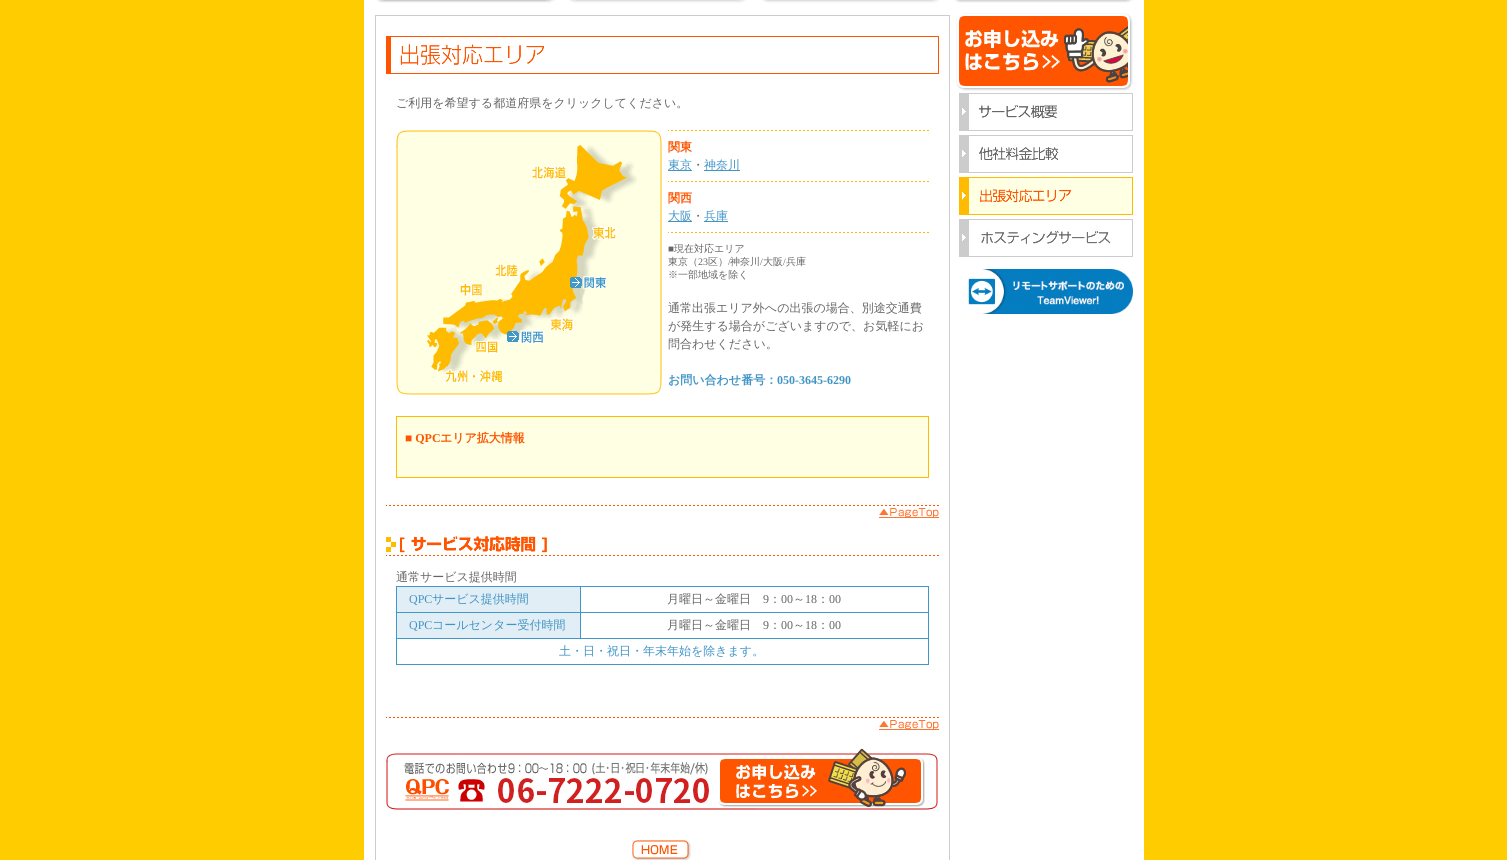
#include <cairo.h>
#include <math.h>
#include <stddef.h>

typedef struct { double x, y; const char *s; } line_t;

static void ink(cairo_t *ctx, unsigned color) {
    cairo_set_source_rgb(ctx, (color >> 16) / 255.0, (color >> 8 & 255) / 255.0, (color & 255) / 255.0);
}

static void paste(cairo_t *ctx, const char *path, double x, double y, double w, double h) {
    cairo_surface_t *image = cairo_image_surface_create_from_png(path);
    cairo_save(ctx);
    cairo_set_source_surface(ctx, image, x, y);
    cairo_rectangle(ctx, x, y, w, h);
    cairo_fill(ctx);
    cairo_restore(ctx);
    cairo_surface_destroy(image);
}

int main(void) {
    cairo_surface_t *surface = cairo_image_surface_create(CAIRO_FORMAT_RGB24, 1507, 860);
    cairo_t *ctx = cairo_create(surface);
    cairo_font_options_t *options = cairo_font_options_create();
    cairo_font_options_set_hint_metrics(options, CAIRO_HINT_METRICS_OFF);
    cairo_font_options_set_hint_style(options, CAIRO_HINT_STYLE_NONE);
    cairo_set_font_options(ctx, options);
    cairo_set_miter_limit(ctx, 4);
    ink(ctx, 0xFFCC00);
    cairo_paint(ctx);
    ink(ctx, 0xFFFFFF);
    cairo_rectangle(ctx, 364, 0, 780, 860);
    cairo_fill(ctx);
    paste(ctx, "media/1.png", 377, 0, 178, 3);
    paste(ctx, "media/2.png", 569, 0, 177, 3);
    paste(ctx, "media/3.png", 762, 0, 177, 3);
    paste(ctx, "media/4.png", 955, 0, 178, 3);
    cairo_rectangle(ctx, 375.5, 15.5, 574, 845);
    ink(ctx, 0xCCCCCC);
    cairo_set_line_width(ctx, 1);
    cairo_stroke(ctx);
    paste(ctx, "media/5.png", 386, 36, 553, 38);
    cairo_select_font_face(ctx, "WenQuanYi Zen Hei Medium", CAIRO_FONT_SLANT_NORMAL, CAIRO_FONT_WEIGHT_NORMAL);
    cairo_set_font_size(ctx, 12);
    ink(ctx, 0x666666);
    cairo_move_to(ctx, 396, 107);
    cairo_show_text(ctx, "ご利用を希望する都道府県をクリックしてください。");
    paste(ctx, "media/6.png", 396, 130, 266, 265);
    paste(ctx, "media/7.png", 668, 130, 261, 1);
    cairo_select_font_face(ctx, "WenQuanYi Zen Hei", CAIRO_FONT_SLANT_NORMAL, CAIRO_FONT_WEIGHT_BOLD);
    ink(ctx, 0xFF5400);
    cairo_move_to(ctx, 668, 151);
    cairo_show_text(ctx, "関東");
    ink(ctx, 0x4194C6);
    cairo_rectangle(ctx, 668, 170, 24, 1);
    cairo_fill(ctx);
    cairo_select_font_face(ctx, "WenQuanYi Zen Hei Medium", CAIRO_FONT_SLANT_NORMAL, CAIRO_FONT_WEIGHT_NORMAL);
    cairo_move_to(ctx, 668, 169);
    cairo_show_text(ctx, "東京");
    ink(ctx, 0x666666);
    cairo_move_to(ctx, 692, 169);
    cairo_show_text(ctx, "・");
    ink(ctx, 0x4194C6);
    cairo_rectangle(ctx, 704, 170, 36, 1);
    cairo_fill(ctx);
    cairo_move_to(ctx, 704, 169);
    cairo_show_text(ctx, "神奈川");
    paste(ctx, "media/7.png", 668, 181, 261, 1);
    cairo_select_font_face(ctx, "WenQuanYi Zen Hei", CAIRO_FONT_SLANT_NORMAL, CAIRO_FONT_WEIGHT_BOLD);
    ink(ctx, 0xFF5400);
    cairo_move_to(ctx, 668, 202);
    cairo_show_text(ctx, "関西");
    ink(ctx, 0x4194C6);
    cairo_rectangle(ctx, 668, 221, 24, 1);
    cairo_fill(ctx);
    cairo_select_font_face(ctx, "WenQuanYi Zen Hei Medium", CAIRO_FONT_SLANT_NORMAL, CAIRO_FONT_WEIGHT_NORMAL);
    cairo_move_to(ctx, 668, 220);
    cairo_show_text(ctx, "大阪");
    ink(ctx, 0x666666);
    cairo_move_to(ctx, 692, 220);
    cairo_show_text(ctx, "・");
    ink(ctx, 0x4194C6);
    cairo_rectangle(ctx, 704, 221, 24, 1);
    cairo_fill(ctx);
    cairo_move_to(ctx, 704, 220);
    cairo_show_text(ctx, "兵庫");
    paste(ctx, "media/7.png", 668, 232, 261, 1);
    cairo_select_font_face(ctx, "Liberation Serif", CAIRO_FONT_SLANT_NORMAL, CAIRO_FONT_WEIGHT_NORMAL);
    cairo_set_font_size(ctx, 10);
    ink(ctx, 0x666666);
    cairo_move_to(ctx, 668, 252);
    cairo_show_text(ctx, "■");
    cairo_select_font_face(ctx, "WenQuanYi Zen Hei Medium", CAIRO_FONT_SLANT_NORMAL, CAIRO_FONT_WEIGHT_NORMAL);
    cairo_move_to(ctx, 674, 252);
    cairo_show_text(ctx, "現在対応エリア");
    cairo_move_to(ctx, 668, 265);
    cairo_show_text(ctx, "東京（");
    cairo_select_font_face(ctx, "Liberation Serif", CAIRO_FONT_SLANT_NORMAL, CAIRO_FONT_WEIGHT_NORMAL);
    cairo_move_to(ctx, 698, 265);
    cairo_show_text(ctx, "23");
    cairo_select_font_face(ctx, "WenQuanYi Zen Hei Medium", CAIRO_FONT_SLANT_NORMAL, CAIRO_FONT_WEIGHT_NORMAL);
    cairo_move_to(ctx, 708, 265);
    cairo_show_text(ctx, "区）");
    cairo_select_font_face(ctx, "Liberation Serif", CAIRO_FONT_SLANT_NORMAL, CAIRO_FONT_WEIGHT_NORMAL);
    cairo_move_to(ctx, 728, 265);
    cairo_show_text(ctx, "/");
    cairo_select_font_face(ctx, "WenQuanYi Zen Hei Medium", CAIRO_FONT_SLANT_NORMAL, CAIRO_FONT_WEIGHT_NORMAL);
    cairo_move_to(ctx, 730, 265);
    cairo_show_text(ctx, "神奈川");
    cairo_select_font_face(ctx, "Liberation Serif", CAIRO_FONT_SLANT_NORMAL, CAIRO_FONT_WEIGHT_NORMAL);
    cairo_move_to(ctx, 760, 265);
    cairo_show_text(ctx, "/");
    cairo_select_font_face(ctx, "WenQuanYi Zen Hei Medium", CAIRO_FONT_SLANT_NORMAL, CAIRO_FONT_WEIGHT_NORMAL);
    cairo_move_to(ctx, 763, 265);
    cairo_show_text(ctx, "大阪 兵庫");
    cairo_select_font_face(ctx, "Liberation Serif", CAIRO_FONT_SLANT_NORMAL, CAIRO_FONT_WEIGHT_NORMAL);
    cairo_move_to(ctx, 783, 265);
    cairo_show_text(ctx, "/");
    cairo_select_font_face(ctx, "WenQuanYi Zen Hei Medium", CAIRO_FONT_SLANT_NORMAL, CAIRO_FONT_WEIGHT_NORMAL);
    cairo_move_to(ctx, 668, 278);
    cairo_show_text(ctx, "※一部地域を除く");
    cairo_set_font_size(ctx, 12);
    {
        static const line_t items[] = {
            {668, 312, "通常出張エリア外への出張の場合、別途交通費"},
            {668, 330, "が発生する場合がございますので、お気軽にお"},
            {668, 348, "問合わせください。"},
        };
        for (size_t i = 0; i < sizeof items / sizeof *items; i++) {
            cairo_move_to(ctx, items[i].x, items[i].y);
            cairo_show_text(ctx, items[i].s);
        }
    }
    cairo_select_font_face(ctx, "WenQuanYi Zen Hei", CAIRO_FONT_SLANT_NORMAL, CAIRO_FONT_WEIGHT_BOLD);
    ink(ctx, 0x4194C6);
    cairo_move_to(ctx, 668, 384);
    cairo_show_text(ctx, "お問い合わせ番号：");
    cairo_select_font_face(ctx, "Liberation Serif", CAIRO_FONT_SLANT_NORMAL, CAIRO_FONT_WEIGHT_BOLD);
    cairo_move_to(ctx, 777, 384);
    cairo_show_text(ctx, "050-3645-6290");
    ink(ctx, 0xFEFFE3);
    cairo_rectangle(ctx, 396.5, 416.5, 532, 61);
    cairo_fill_preserve(ctx);
    ink(ctx, 0xFFBB00);
    cairo_stroke(ctx);
    ink(ctx, 0xFF5400);
    cairo_move_to(ctx, 405, 442);
    cairo_show_text(ctx, "■ QPC");
    cairo_select_font_face(ctx, "WenQuanYi Zen Hei", CAIRO_FONT_SLANT_NORMAL, CAIRO_FONT_WEIGHT_BOLD);
    cairo_move_to(ctx, 440, 442);
    cairo_show_text(ctx, "エリア拡大情報");
    paste(ctx, "media/8.png", 386, 505, 553, 1);
    paste(ctx, "media/9.png", 879, 508, 60, 10);
    paste(ctx, "media/10.png", 386, 536, 161, 17);
    paste(ctx, "media/8.png", 386, 555, 553, 1);
    cairo_select_font_face(ctx, "WenQuanYi Zen Hei Medium", CAIRO_FONT_SLANT_NORMAL, CAIRO_FONT_WEIGHT_NORMAL);
    ink(ctx, 0x666666);
    cairo_move_to(ctx, 396, 581);
    cairo_show_text(ctx, "通常サービス提供時間");
    ink(ctx, 0x3F98C9);
    cairo_rectangle(ctx, 396, 586, 533, 79);
    cairo_fill(ctx);
    ink(ctx, 0xE2EEF5);
    cairo_rectangle(ctx, 397, 587, 183, 25);
    cairo_fill(ctx);
    cairo_select_font_face(ctx, "Liberation Serif", CAIRO_FONT_SLANT_NORMAL, CAIRO_FONT_WEIGHT_NORMAL);
    ink(ctx, 0x4194C6);
    cairo_move_to(ctx, 409, 603);
    cairo_show_text(ctx, "QPC");
    cairo_select_font_face(ctx, "WenQuanYi Zen Hei Medium", CAIRO_FONT_SLANT_NORMAL, CAIRO_FONT_WEIGHT_NORMAL);
    cairo_move_to(ctx, 432, 603);
    cairo_show_text(ctx, "サービス提供時間");
    ink(ctx, 0xFFFFFF);
    cairo_rectangle(ctx, 581, 587, 347, 25);
    cairo_fill(ctx);
    ink(ctx, 0x666666);
    cairo_move_to(ctx, 667, 603);
    cairo_show_text(ctx, "月曜日～金曜日");
    cairo_select_font_face(ctx, "Liberation Serif", CAIRO_FONT_SLANT_NORMAL, CAIRO_FONT_WEIGHT_NORMAL);
    cairo_move_to(ctx, 763, 603);
    cairo_show_text(ctx, "9");
    cairo_select_font_face(ctx, "WenQuanYi Zen Hei Medium", CAIRO_FONT_SLANT_NORMAL, CAIRO_FONT_WEIGHT_NORMAL);
    cairo_move_to(ctx, 769, 603);
    cairo_show_text(ctx, "：");
    cairo_select_font_face(ctx, "Liberation Serif", CAIRO_FONT_SLANT_NORMAL, CAIRO_FONT_WEIGHT_NORMAL);
    cairo_move_to(ctx, 781, 603);
    cairo_show_text(ctx, "00");
    cairo_select_font_face(ctx, "WenQuanYi Zen Hei Medium", CAIRO_FONT_SLANT_NORMAL, CAIRO_FONT_WEIGHT_NORMAL);
    cairo_move_to(ctx, 793, 603);
    cairo_show_text(ctx, "～");
    cairo_select_font_face(ctx, "Liberation Serif", CAIRO_FONT_SLANT_NORMAL, CAIRO_FONT_WEIGHT_NORMAL);
    cairo_move_to(ctx, 805, 603);
    cairo_show_text(ctx, "18");
    cairo_select_font_face(ctx, "WenQuanYi Zen Hei Medium", CAIRO_FONT_SLANT_NORMAL, CAIRO_FONT_WEIGHT_NORMAL);
    cairo_move_to(ctx, 817, 603);
    cairo_show_text(ctx, "：");
    cairo_select_font_face(ctx, "Liberation Serif", CAIRO_FONT_SLANT_NORMAL, CAIRO_FONT_WEIGHT_NORMAL);
    cairo_move_to(ctx, 829, 603);
    cairo_show_text(ctx, "00");
    ink(ctx, 0xE2EEF5);
    cairo_rectangle(ctx, 397, 613, 183, 25);
    cairo_fill(ctx);
    ink(ctx, 0x4194C6);
    cairo_move_to(ctx, 409, 629);
    cairo_show_text(ctx, "QPC");
    cairo_select_font_face(ctx, "WenQuanYi Zen Hei Medium", CAIRO_FONT_SLANT_NORMAL, CAIRO_FONT_WEIGHT_NORMAL);
    cairo_move_to(ctx, 432, 629);
    cairo_show_text(ctx, "コールセンター受付時間");
    ink(ctx, 0xFFFFFF);
    cairo_rectangle(ctx, 581, 613, 347, 25);
    cairo_fill(ctx);
    ink(ctx, 0x666666);
    cairo_move_to(ctx, 667, 629);
    cairo_show_text(ctx, "月曜日～金曜日");
    cairo_select_font_face(ctx, "Liberation Serif", CAIRO_FONT_SLANT_NORMAL, CAIRO_FONT_WEIGHT_NORMAL);
    cairo_move_to(ctx, 763, 629);
    cairo_show_text(ctx, "9");
    cairo_select_font_face(ctx, "WenQuanYi Zen Hei Medium", CAIRO_FONT_SLANT_NORMAL, CAIRO_FONT_WEIGHT_NORMAL);
    cairo_move_to(ctx, 769, 629);
    cairo_show_text(ctx, "：");
    cairo_select_font_face(ctx, "Liberation Serif", CAIRO_FONT_SLANT_NORMAL, CAIRO_FONT_WEIGHT_NORMAL);
    cairo_move_to(ctx, 781, 629);
    cairo_show_text(ctx, "00");
    cairo_select_font_face(ctx, "WenQuanYi Zen Hei Medium", CAIRO_FONT_SLANT_NORMAL, CAIRO_FONT_WEIGHT_NORMAL);
    cairo_move_to(ctx, 793, 629);
    cairo_show_text(ctx, "～");
    cairo_select_font_face(ctx, "Liberation Serif", CAIRO_FONT_SLANT_NORMAL, CAIRO_FONT_WEIGHT_NORMAL);
    cairo_move_to(ctx, 805, 629);
    cairo_show_text(ctx, "18");
    cairo_select_font_face(ctx, "WenQuanYi Zen Hei Medium", CAIRO_FONT_SLANT_NORMAL, CAIRO_FONT_WEIGHT_NORMAL);
    cairo_move_to(ctx, 817, 629);
    cairo_show_text(ctx, "：");
    cairo_select_font_face(ctx, "Liberation Serif", CAIRO_FONT_SLANT_NORMAL, CAIRO_FONT_WEIGHT_NORMAL);
    cairo_move_to(ctx, 829, 629);
    cairo_show_text(ctx, "00");
    ink(ctx, 0xFFFFFF);
    cairo_rectangle(ctx, 397, 639, 531, 25);
    cairo_fill(ctx);
    cairo_select_font_face(ctx, "WenQuanYi Zen Hei Medium", CAIRO_FONT_SLANT_NORMAL, CAIRO_FONT_WEIGHT_NORMAL);
    ink(ctx, 0x4194C6);
    cairo_move_to(ctx, 559, 655);
    cairo_show_text(ctx, "土・日・祝日・年末年始を除きます。");
    paste(ctx, "media/8.png", 386, 717, 553, 1);
    paste(ctx, "media/9.png", 879, 720, 60, 10);
    paste(ctx, "media/11.png", 386, 748, 552, 62);
    paste(ctx, "media/12.png", 632, 840, 59, 20);
    paste(ctx, "media/13.png", 956, 13, 177, 78);
    paste(ctx, "media/14.png", 959, 93, 174, 38);
    paste(ctx, "media/15.png", 959, 135, 174, 38);
    paste(ctx, "media/16.png", 959, 177, 174, 38);
    paste(ctx, "media/17.png", 959, 219, 174, 38);
    paste(ctx, "media/18.png", 968, 269, 165, 45);
    cairo_surface_write_to_png(surface, "image.png");
    cairo_font_options_destroy(options);
    cairo_destroy(ctx);
    cairo_surface_destroy(surface);
    return 0;
}
